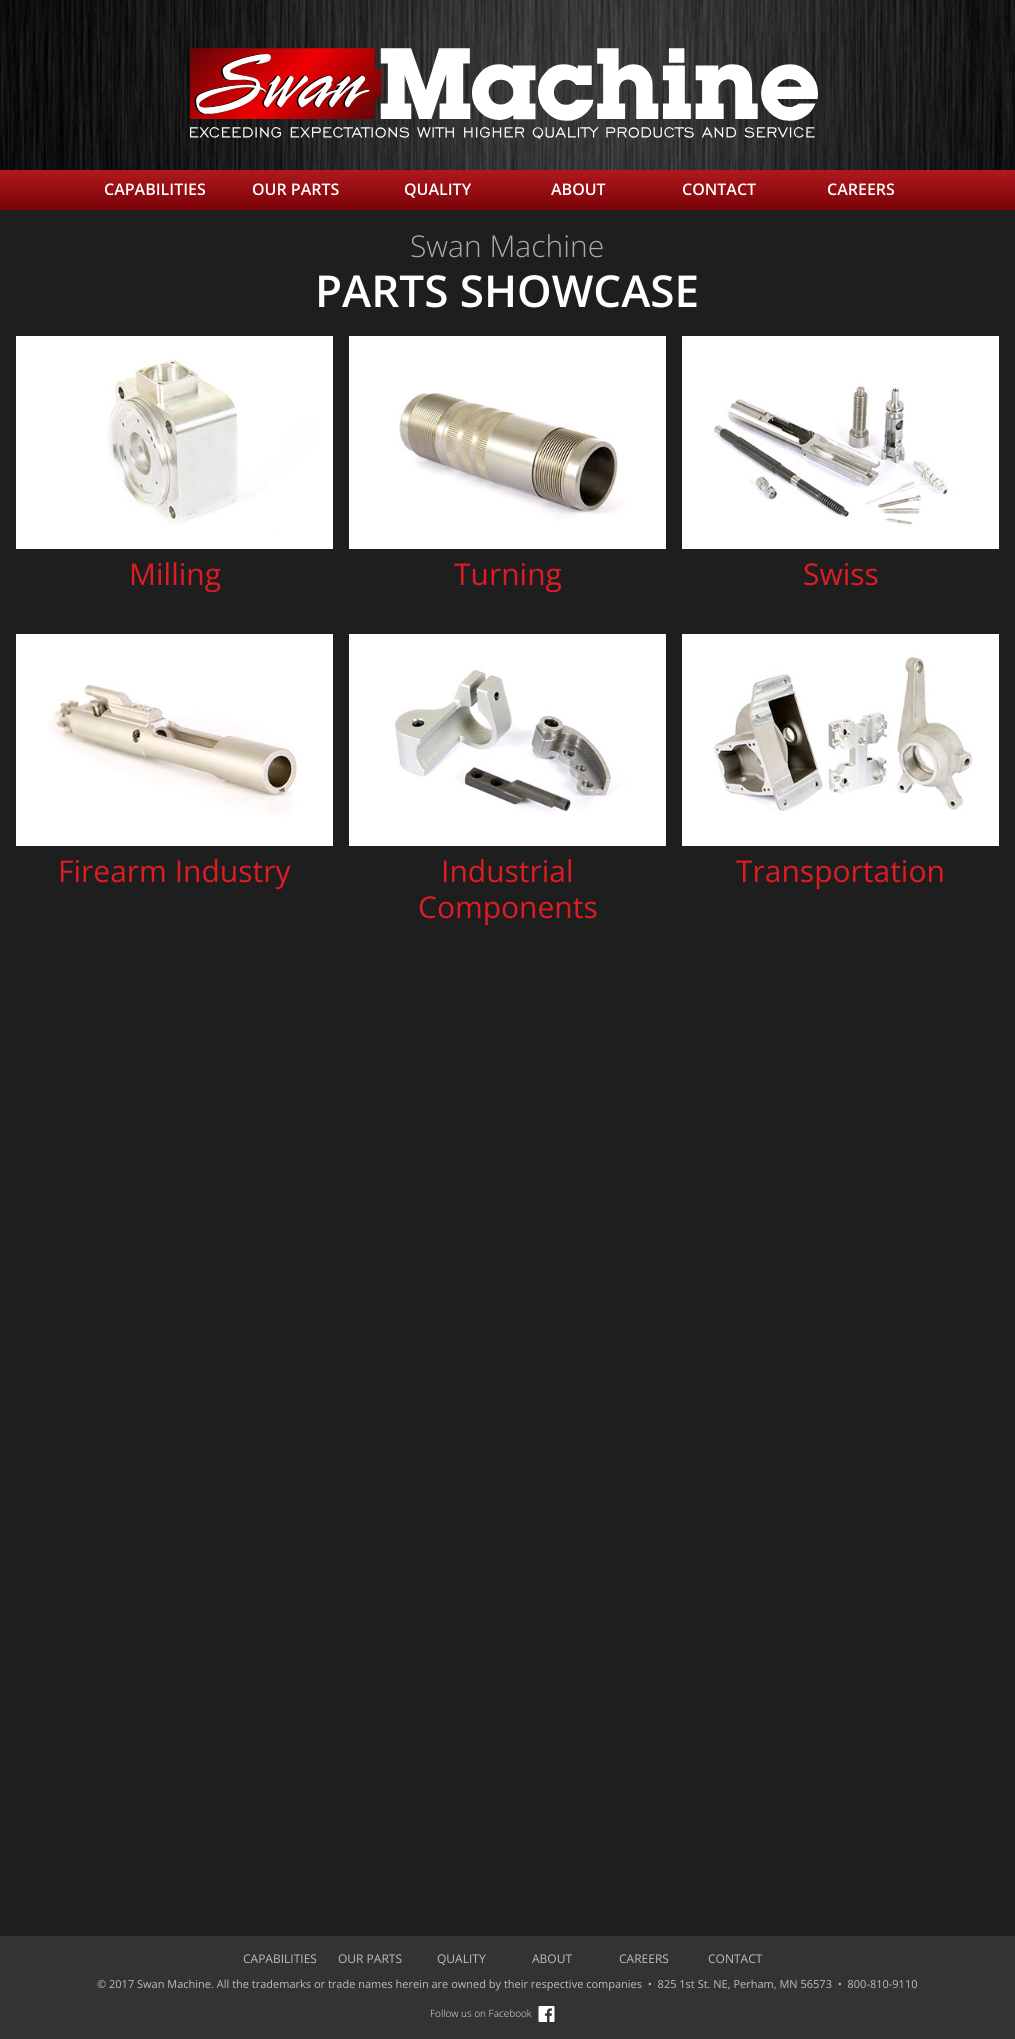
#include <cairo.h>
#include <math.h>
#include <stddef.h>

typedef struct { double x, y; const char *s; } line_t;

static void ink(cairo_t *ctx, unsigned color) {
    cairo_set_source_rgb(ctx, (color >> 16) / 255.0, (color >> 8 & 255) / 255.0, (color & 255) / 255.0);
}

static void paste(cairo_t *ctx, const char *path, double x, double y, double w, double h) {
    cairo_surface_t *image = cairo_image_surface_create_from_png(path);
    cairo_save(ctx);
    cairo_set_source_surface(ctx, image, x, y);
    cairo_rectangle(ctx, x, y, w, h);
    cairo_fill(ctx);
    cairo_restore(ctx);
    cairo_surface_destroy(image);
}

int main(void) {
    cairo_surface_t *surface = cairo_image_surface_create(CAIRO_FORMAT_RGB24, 1015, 2039);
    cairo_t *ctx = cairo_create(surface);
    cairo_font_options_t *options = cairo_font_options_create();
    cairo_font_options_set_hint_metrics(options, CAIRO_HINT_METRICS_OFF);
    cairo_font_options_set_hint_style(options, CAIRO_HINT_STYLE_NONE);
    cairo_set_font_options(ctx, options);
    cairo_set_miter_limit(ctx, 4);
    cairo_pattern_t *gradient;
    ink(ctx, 0x1E1E1E);
    cairo_paint(ctx);
    paste(ctx, "media/1.png", 0, 0, 1015, 170);
    paste(ctx, "media/2.png", 190, 48, 628, 91);
    gradient = cairo_pattern_create_linear(508, 170, 508, 210);
    cairo_pattern_add_color_stop_rgba(gradient, 0, 0.694, 0.094, 0.118, 1);
    cairo_pattern_add_color_stop_rgba(gradient, 1, 0.478, 0.012, 0.024, 1);
    cairo_set_source(ctx, gradient);
    cairo_pattern_destroy(gradient);
    cairo_rectangle(ctx, 0, 170, 1015, 40);
    cairo_fill(ctx);
    cairo_select_font_face(ctx, "Open Sans SemiBold", CAIRO_FONT_SLANT_NORMAL, CAIRO_FONT_WEIGHT_NORMAL);
    cairo_set_font_size(ctx, 16);
    ink(ctx, 0xFFFFFF);
    {
        static const line_t items[] = {
            {104, 195, "CAPABILITIES"},
            {252, 195, "OUR PARTS"},
            {404, 195, "QUALITY"},
            {551, 195, "ABOUT"},
            {682, 195, "CONTACT"},
            {827, 195, "CAREERS"},
        };
        for (size_t i = 0; i < sizeof items / sizeof *items; i++) {
            cairo_move_to(ctx, items[i].x, items[i].y);
            cairo_show_text(ctx, items[i].s);
        }
    }
    cairo_select_font_face(ctx, "Open Sans Light", CAIRO_FONT_SLANT_NORMAL, CAIRO_FONT_WEIGHT_NORMAL);
    cairo_set_font_size(ctx, 30);
    ink(ctx, 0xAAAAAA);
    cairo_move_to(ctx, 410, 257);
    cairo_show_text(ctx, "Swan Machine");
    cairo_select_font_face(ctx, "Open Sans SemiBold", CAIRO_FONT_SLANT_NORMAL, CAIRO_FONT_WEIGHT_NORMAL);
    cairo_set_font_size(ctx, 44);
    ink(ctx, 0xFFFFFF);
    cairo_move_to(ctx, 315, 307);
    cairo_show_text(ctx, "PARTS SHOWCASE");
    paste(ctx, "media/3.png", 16, 336, 317, 213);
    paste(ctx, "media/4.png", 349, 336, 317, 213);
    paste(ctx, "media/5.png", 682, 336, 317, 213);
    cairo_select_font_face(ctx, "Open Sans", CAIRO_FONT_SLANT_NORMAL, CAIRO_FONT_WEIGHT_NORMAL);
    cairo_set_font_size(ctx, 30);
    ink(ctx, 0xDE1C24);
    {
        static const line_t items[] = {
            {129, 585, "Milling"},
            {454, 585, "Turning"},
            {803, 585, "Swiss"},
        };
        for (size_t i = 0; i < sizeof items / sizeof *items; i++) {
            cairo_move_to(ctx, items[i].x, items[i].y);
            cairo_show_text(ctx, items[i].s);
        }
    }
    paste(ctx, "media/6.png", 16, 634, 317, 212);
    paste(ctx, "media/7.png", 349, 634, 317, 212);
    paste(ctx, "media/8.png", 682, 634, 317, 212);
    {
        static const line_t items[] = {
            {58, 882, "Firearm Industry"},
            {441, 882, "Industrial"},
            {418, 918, "Components"},
            {736, 882, "Transportation"},
        };
        for (size_t i = 0; i < sizeof items / sizeof *items; i++) {
            cairo_move_to(ctx, items[i].x, items[i].y);
            cairo_show_text(ctx, items[i].s);
        }
    }
    ink(ctx, 0x333333);
    cairo_rectangle(ctx, 0, 1936, 1015, 103);
    cairo_fill(ctx);
    cairo_set_font_size(ctx, 12);
    ink(ctx, 0xBCBEC0);
    {
        static const line_t items[] = {
            {243, 1963, "CAPABILITIES"},
            {338, 1963, "OUR PARTS"},
            {437, 1963, "QUALITY"},
            {532, 1963, "ABOUT"},
            {619, 1963, "CAREERS"},
            {708, 1963, "CONTACT"},
        };
        for (size_t i = 0; i < sizeof items / sizeof *items; i++) {
            cairo_move_to(ctx, items[i].x, items[i].y);
            cairo_show_text(ctx, items[i].s);
        }
    }
    cairo_set_font_size(ctx, 11);
    cairo_move_to(ctx, 97, 1988);
    cairo_show_text(ctx, "© 2017 Swan Machine. All the trademarks or trade names herein are owned by their respective companies  •  825 1st St. NE, Perham, MN 56573  •  800-810-9110");
    cairo_select_font_face(ctx, "Open Sans Light", CAIRO_FONT_SLANT_NORMAL, CAIRO_FONT_WEIGHT_NORMAL);
    cairo_set_font_size(ctx, 10);
    ink(ctx, 0xE6E7E8);
    cairo_move_to(ctx, 430, 2017);
    cairo_show_text(ctx, "Follow us on Facebook");
    paste(ctx, "media/9.png", 538, 2006, 17, 16);
    cairo_surface_write_to_png(surface, "image.png");
    cairo_font_options_destroy(options);
    cairo_destroy(ctx);
    cairo_surface_destroy(surface);
    return 0;
}
